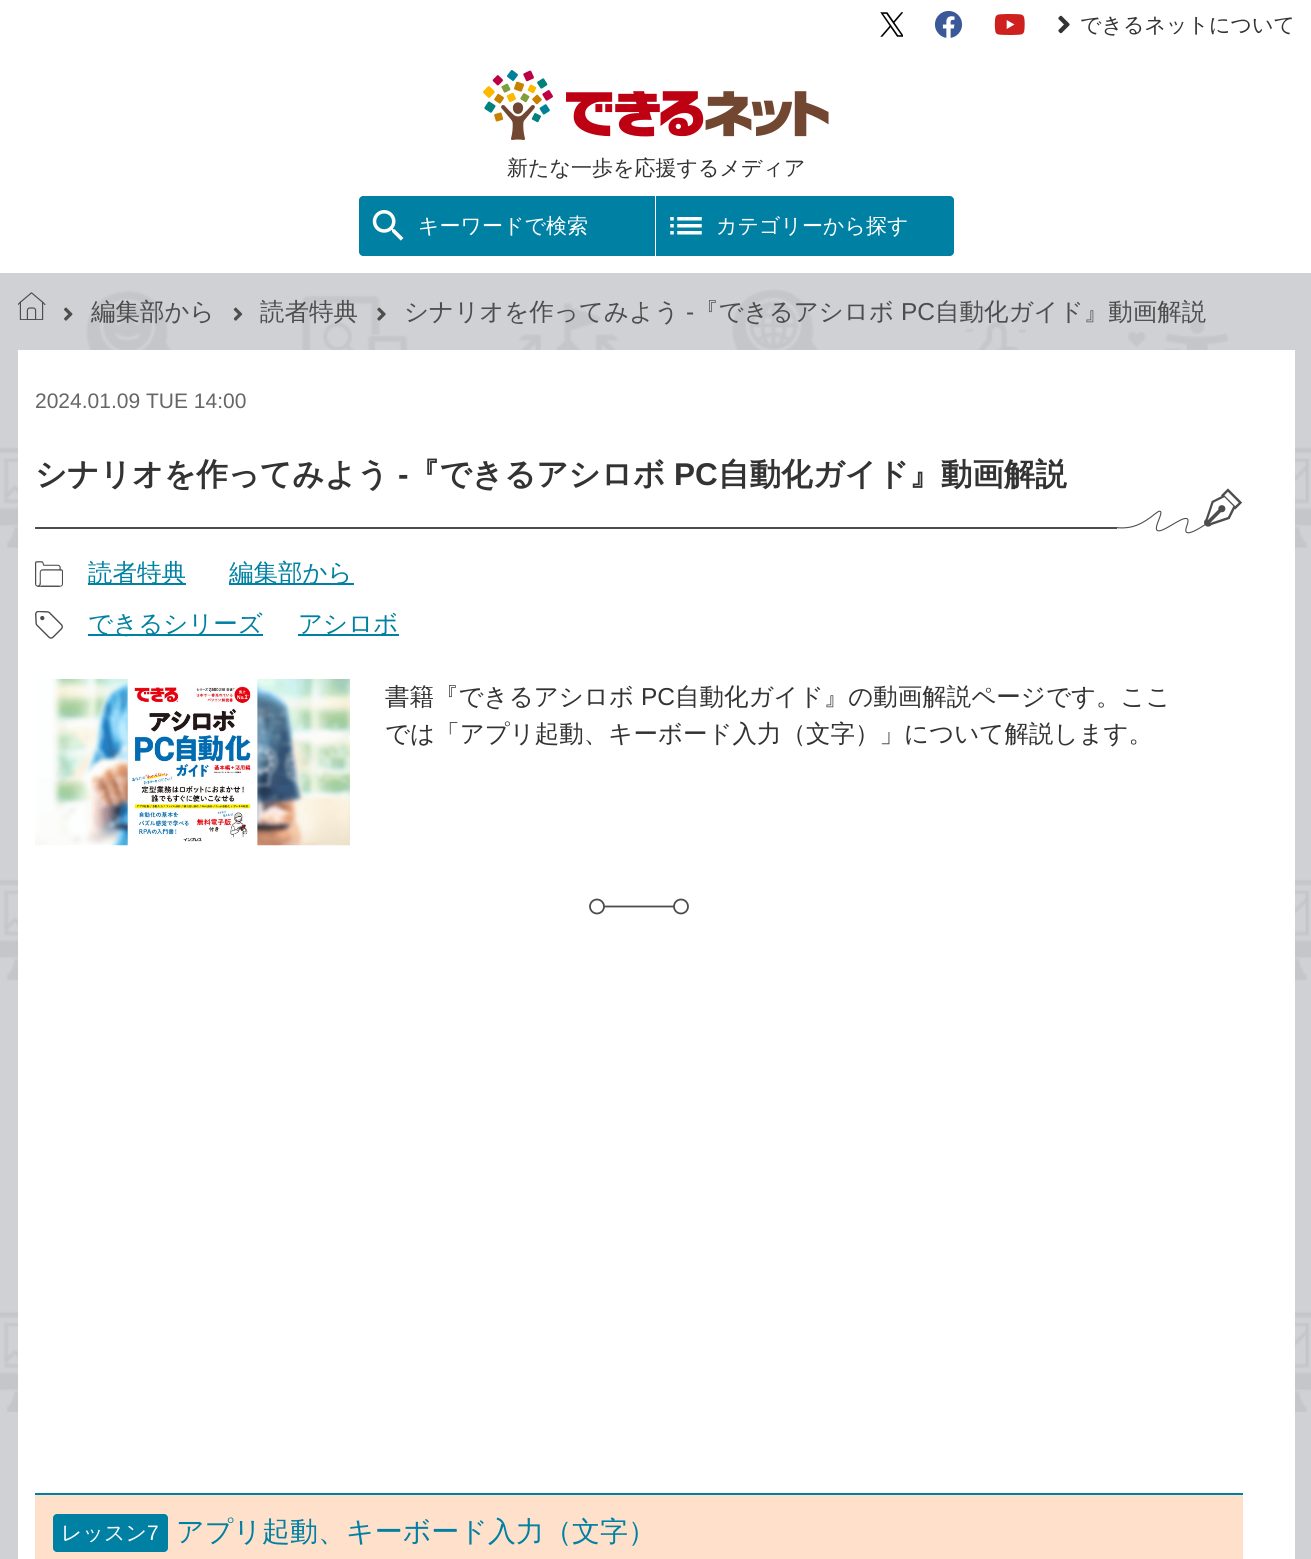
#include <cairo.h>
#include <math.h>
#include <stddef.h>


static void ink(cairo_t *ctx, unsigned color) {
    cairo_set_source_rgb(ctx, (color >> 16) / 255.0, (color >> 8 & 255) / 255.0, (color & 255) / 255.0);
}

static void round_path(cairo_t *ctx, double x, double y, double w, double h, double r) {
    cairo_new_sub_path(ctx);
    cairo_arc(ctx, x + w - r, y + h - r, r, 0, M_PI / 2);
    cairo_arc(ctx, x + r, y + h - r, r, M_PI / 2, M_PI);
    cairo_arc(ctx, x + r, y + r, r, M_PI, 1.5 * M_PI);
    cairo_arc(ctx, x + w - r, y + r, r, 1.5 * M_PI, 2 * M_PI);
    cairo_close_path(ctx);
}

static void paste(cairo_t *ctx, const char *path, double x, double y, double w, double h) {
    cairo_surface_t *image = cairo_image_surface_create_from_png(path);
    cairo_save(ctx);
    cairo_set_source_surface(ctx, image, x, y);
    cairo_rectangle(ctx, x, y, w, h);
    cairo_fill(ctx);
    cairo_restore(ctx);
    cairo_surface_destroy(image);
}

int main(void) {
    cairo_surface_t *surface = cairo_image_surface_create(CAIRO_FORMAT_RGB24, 1311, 1559);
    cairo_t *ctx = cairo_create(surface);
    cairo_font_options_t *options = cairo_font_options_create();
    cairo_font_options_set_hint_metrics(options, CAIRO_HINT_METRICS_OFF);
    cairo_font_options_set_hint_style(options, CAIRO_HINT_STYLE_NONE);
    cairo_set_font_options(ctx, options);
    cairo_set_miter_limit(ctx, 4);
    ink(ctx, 0xFFFFFF);
    cairo_paint(ctx);
    paste(ctx, "media/1.png", 880, 12, 23, 25);
    paste(ctx, "media/2.png", 934, 10, 29, 28);
    paste(ctx, "media/3.png", 994, 14, 31, 21);
    paste(ctx, "media/4.png", 1058, 15, 12, 19);
    cairo_select_font_face(ctx, "WenQuanYi Zen Hei Medium", CAIRO_FONT_SLANT_NORMAL, CAIRO_FONT_WEIGHT_NORMAL);
    cairo_set_font_size(ctx, 21);
    ink(ctx, 0x333333);
    cairo_move_to(ctx, 1080, 32);
    cairo_show_text(ctx, "できるネットについて");
    ink(ctx, 0x0080A2);
    cairo_new_path(ctx);
    cairo_move_to(ctx, 363, 196);
    cairo_line_to(ctx, 656, 196);
    cairo_line_to(ctx, 656, 256);
    cairo_line_to(ctx, 363, 256);
    cairo_curve_to(ctx, 361, 256, 359, 254, 359, 252);
    cairo_line_to(ctx, 359, 200);
    cairo_curve_to(ctx, 359, 198, 361, 196, 363, 196);
    cairo_close_path(ctx);
    cairo_fill(ctx);
    ink(ctx, 0xFFFFFF);
    cairo_rectangle(ctx, 655, 196, 1, 60);
    cairo_fill(ctx);
    paste(ctx, "media/5.png", 372, 210, 32, 31);
    cairo_move_to(ctx, 418, 233);
    cairo_show_text(ctx, "キーワードで検索");
    ink(ctx, 0x0080A2);
    cairo_new_path(ctx);
    cairo_move_to(ctx, 656, 196);
    cairo_line_to(ctx, 950, 196);
    cairo_curve_to(ctx, 952, 196, 954, 198, 954, 200);
    cairo_line_to(ctx, 954, 252);
    cairo_curve_to(ctx, 954, 254, 952, 256, 950, 256);
    cairo_line_to(ctx, 656, 256);
    cairo_close_path(ctx);
    cairo_fill(ctx);
    paste(ctx, "media/6.png", 670, 217, 32, 18);
    ink(ctx, 0xFFFFFF);
    cairo_move_to(ctx, 716, 233);
    cairo_show_text(ctx, "カテゴリーから探す");
    paste(ctx, "media/7.png", 483, 70, 346, 70);
    ink(ctx, 0x333333);
    cairo_move_to(ctx, 507, 175);
    cairo_show_text(ctx, "新たな一歩を応援するメディア");
    ink(ctx, 0xCFD1D4);
    cairo_rectangle(ctx, 0, 273, 1311, 1286);
    cairo_fill(ctx);
    paste(ctx, "media/8.png", 0, 289, 1311, 1123);
    paste(ctx, "media/9.png", 18, 292, 28, 28);
    paste(ctx, "media/10.png", 64, 307, 9, 14);
    cairo_set_font_size(ctx, 24.5);
    ink(ctx, 0x4D4D4D);
    cairo_move_to(ctx, 91, 320);
    cairo_show_text(ctx, "編集部から");
    paste(ctx, "media/11.png", 233, 307, 10, 14);
    cairo_move_to(ctx, 260, 320);
    cairo_show_text(ctx, "読者特典");
    paste(ctx, "media/12.png", 377, 307, 9, 14);
    cairo_move_to(ctx, 404, 320);
    cairo_show_text(ctx, "シナリオを作ってみよう");
    cairo_select_font_face(ctx, "Liberation Sans", CAIRO_FONT_SLANT_NORMAL, CAIRO_FONT_WEIGHT_NORMAL);
    cairo_move_to(ctx, 686, 320);
    cairo_show_text(ctx, "-");
    cairo_select_font_face(ctx, "WenQuanYi Zen Hei Medium", CAIRO_FONT_SLANT_NORMAL, CAIRO_FONT_WEIGHT_NORMAL);
    cairo_move_to(ctx, 694, 320);
    cairo_show_text(ctx, "『できるアシロボ");
    cairo_select_font_face(ctx, "Liberation Sans", CAIRO_FONT_SLANT_NORMAL, CAIRO_FONT_WEIGHT_NORMAL);
    cairo_move_to(ctx, 901, 320);
    cairo_show_text(ctx, "PC");
    cairo_select_font_face(ctx, "WenQuanYi Zen Hei Medium", CAIRO_FONT_SLANT_NORMAL, CAIRO_FONT_WEIGHT_NORMAL);
    cairo_move_to(ctx, 935, 320);
    cairo_show_text(ctx, "自動化ガイド』動画解説");
    ink(ctx, 0xFFFFFF);
    cairo_rectangle(ctx, 18, 350, 1277, 1209);
    cairo_fill(ctx);
    cairo_select_font_face(ctx, "Liberation Sans", CAIRO_FONT_SLANT_NORMAL, CAIRO_FONT_WEIGHT_NORMAL);
    cairo_set_font_size(ctx, 21);
    ink(ctx, 0x666666);
    cairo_move_to(ctx, 35, 408);
    cairo_show_text(ctx, "2024.01.09 TUE 14:00");
    paste(ctx, "media/13.png", 1117, 488, 126, 46);
    cairo_select_font_face(ctx, "WenQuanYi Zen Hei", CAIRO_FONT_SLANT_NORMAL, CAIRO_FONT_WEIGHT_BOLD);
    cairo_set_font_size(ctx, 31.5);
    ink(ctx, 0x333333);
    cairo_move_to(ctx, 35, 485);
    cairo_show_text(ctx, "シナリオを作ってみよう");
    cairo_select_font_face(ctx, "Liberation Sans", CAIRO_FONT_SLANT_NORMAL, CAIRO_FONT_WEIGHT_BOLD);
    cairo_move_to(ctx, 398, 485);
    cairo_show_text(ctx, "-");
    cairo_select_font_face(ctx, "WenQuanYi Zen Hei", CAIRO_FONT_SLANT_NORMAL, CAIRO_FONT_WEIGHT_BOLD);
    cairo_move_to(ctx, 408, 485);
    cairo_show_text(ctx, "『できるアシロボ");
    cairo_select_font_face(ctx, "Liberation Sans", CAIRO_FONT_SLANT_NORMAL, CAIRO_FONT_WEIGHT_BOLD);
    cairo_move_to(ctx, 674, 485);
    cairo_show_text(ctx, "PC");
    cairo_select_font_face(ctx, "WenQuanYi Zen Hei", CAIRO_FONT_SLANT_NORMAL, CAIRO_FONT_WEIGHT_BOLD);
    cairo_move_to(ctx, 718, 485);
    cairo_show_text(ctx, "自動化ガイド』動画解説");
    ink(ctx, 0x4D4D4D);
    cairo_rectangle(ctx, 35, 527, 1082, 2);
    cairo_fill(ctx);
    paste(ctx, "media/14.png", 35, 561, 28, 26);
    ink(ctx, 0x0080A2);
    cairo_rectangle(ctx, 88, 583, 98, 2);
    cairo_fill(ctx);
    cairo_select_font_face(ctx, "WenQuanYi Zen Hei Medium", CAIRO_FONT_SLANT_NORMAL, CAIRO_FONT_WEIGHT_NORMAL);
    cairo_set_font_size(ctx, 24.5);
    cairo_move_to(ctx, 88, 581);
    cairo_show_text(ctx, "読者特典");
    cairo_rectangle(ctx, 229, 583, 125, 2);
    cairo_fill(ctx);
    cairo_move_to(ctx, 229, 581);
    cairo_show_text(ctx, "編集部から");
    paste(ctx, "media/15.png", 35, 611, 28, 28);
    cairo_rectangle(ctx, 88, 634, 175, 2);
    cairo_fill(ctx);
    cairo_move_to(ctx, 88, 632);
    cairo_show_text(ctx, "できるシリーズ");
    cairo_rectangle(ctx, 298, 634, 101, 2);
    cairo_fill(ctx);
    cairo_move_to(ctx, 298, 632);
    cairo_show_text(ctx, "アシロボ");
    paste(ctx, "media/16.png", 35, 679, 315, 167);
    ink(ctx, 0x333333);
    cairo_move_to(ctx, 385, 705);
    cairo_show_text(ctx, "書籍『できるアシロボ");
    cairo_select_font_face(ctx, "Liberation Sans", CAIRO_FONT_SLANT_NORMAL, CAIRO_FONT_WEIGHT_NORMAL);
    cairo_move_to(ctx, 641, 705);
    cairo_show_text(ctx, "PC");
    cairo_select_font_face(ctx, "WenQuanYi Zen Hei Medium", CAIRO_FONT_SLANT_NORMAL, CAIRO_FONT_WEIGHT_NORMAL);
    cairo_move_to(ctx, 675, 705);
    cairo_show_text(ctx, "自動化ガイド』の動画解説ページです。ここ");
    cairo_move_to(ctx, 385, 742);
    cairo_show_text(ctx, "では「アプリ起動、キーボード入力（文字）」について解説します。");
    cairo_new_path(ctx);
    cairo_move_to(ctx, 604, 906.5);
    cairo_line_to(ctx, 674, 906.5);
    ink(ctx, 0x4D4D4D);
    cairo_set_line_width(ctx, 1.8);
    cairo_stroke(ctx);
    cairo_arc(ctx, 681, 906.5, 7, 0, 2 * M_PI);
    cairo_stroke(ctx);
    cairo_arc(ctx, 597, 906.5, 7, 0, 2 * M_PI);
    cairo_stroke(ctx);
    ink(ctx, 0xFFE1CB);
    cairo_rectangle(ctx, 35, 1495, 1208, 64);
    cairo_fill(ctx);
    ink(ctx, 0x0080A2);
    cairo_rectangle(ctx, 35, 1493, 1208, 2);
    cairo_fill(ctx);
    round_path(ctx, 53, 1514, 115, 38, 4);
    cairo_fill(ctx);
    cairo_set_font_size(ctx, 21);
    ink(ctx, 0xFFFFFF);
    cairo_move_to(ctx, 61, 1540);
    cairo_show_text(ctx, "レッスン");
    cairo_select_font_face(ctx, "Liberation Sans", CAIRO_FONT_SLANT_NORMAL, CAIRO_FONT_WEIGHT_NORMAL);
    cairo_move_to(ctx, 147, 1540);
    cairo_show_text(ctx, "7");
    cairo_select_font_face(ctx, "WenQuanYi Zen Hei Medium", CAIRO_FONT_SLANT_NORMAL, CAIRO_FONT_WEIGHT_NORMAL);
    cairo_set_font_size(ctx, 28);
    ink(ctx, 0x0080A2);
    cairo_move_to(ctx, 176, 1541);
    cairo_show_text(ctx, "アプリ起動、キーボード入力（文字）");
    cairo_surface_write_to_png(surface, "image.png");
    cairo_font_options_destroy(options);
    cairo_destroy(ctx);
    cairo_surface_destroy(surface);
    return 0;
}
